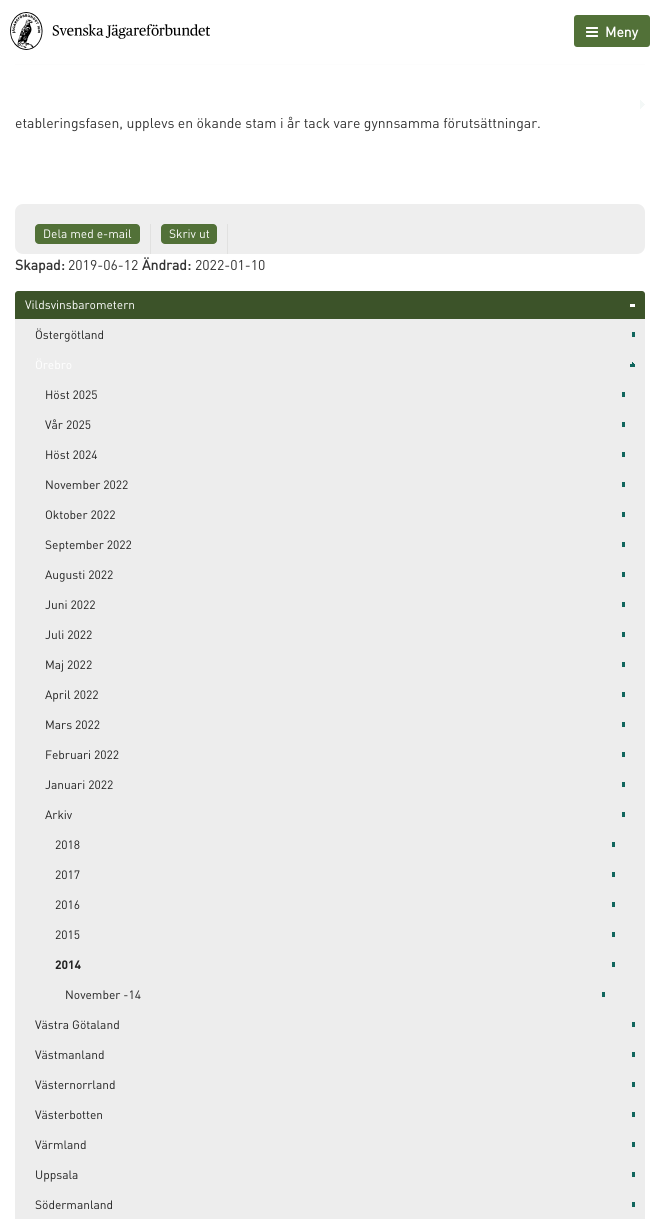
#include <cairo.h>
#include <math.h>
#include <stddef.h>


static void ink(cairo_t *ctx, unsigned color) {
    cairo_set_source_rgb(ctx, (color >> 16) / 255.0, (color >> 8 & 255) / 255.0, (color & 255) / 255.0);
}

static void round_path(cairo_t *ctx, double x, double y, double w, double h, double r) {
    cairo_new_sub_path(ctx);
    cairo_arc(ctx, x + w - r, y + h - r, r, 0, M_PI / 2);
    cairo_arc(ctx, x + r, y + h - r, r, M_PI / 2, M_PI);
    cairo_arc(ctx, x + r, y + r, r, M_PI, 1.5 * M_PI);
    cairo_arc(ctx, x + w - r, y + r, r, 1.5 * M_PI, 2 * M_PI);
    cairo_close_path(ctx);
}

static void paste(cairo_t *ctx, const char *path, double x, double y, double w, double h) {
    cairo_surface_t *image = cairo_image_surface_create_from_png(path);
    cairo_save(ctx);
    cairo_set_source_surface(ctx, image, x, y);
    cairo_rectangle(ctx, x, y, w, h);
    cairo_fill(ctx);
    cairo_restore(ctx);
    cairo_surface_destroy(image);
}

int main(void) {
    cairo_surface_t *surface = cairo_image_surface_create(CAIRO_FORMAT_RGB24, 660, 1219);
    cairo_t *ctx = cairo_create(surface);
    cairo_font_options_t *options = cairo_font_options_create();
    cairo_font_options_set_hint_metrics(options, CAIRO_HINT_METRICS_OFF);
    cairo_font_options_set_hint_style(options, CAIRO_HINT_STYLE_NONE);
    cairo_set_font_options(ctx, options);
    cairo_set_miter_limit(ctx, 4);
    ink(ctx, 0xFFFFFF);
    cairo_paint(ctx);
    paste(ctx, "media/3.png", 640, 100, 5, 9);
    ink(ctx, 0xD9D6D0);
    cairo_rectangle(ctx, 15, 64, 630, 1);
    cairo_fill(ctx);
    cairo_set_source_rgba(ctx, 1, 1, 1, 0.95);
    cairo_rectangle(ctx, 15, 64, 630, 45);
    cairo_fill(ctx);
    paste(ctx, "media/1.png", 10, 12, 200, 38);
    ink(ctx, 0x527138);
    round_path(ctx, 574, 15, 76, 32, 3);
    cairo_fill(ctx);
    paste(ctx, "media/2.png", 586, 27, 12, 10);
    cairo_select_font_face(ctx, "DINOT", CAIRO_FONT_SLANT_NORMAL, CAIRO_FONT_WEIGHT_BOLD);
    cairo_set_font_size(ctx, 14);
    ink(ctx, 0xFFFFFF);
    cairo_move_to(ctx, 605, 37);
    cairo_show_text(ctx, "Meny");
    cairo_select_font_face(ctx, "DINOT", CAIRO_FONT_SLANT_NORMAL, CAIRO_FONT_WEIGHT_NORMAL);
    ink(ctx, 0x333333);
    cairo_move_to(ctx, 15, 128);
    cairo_show_text(ctx, "etableringsfasen, upplevs en ökande stam i år tack vare gynnsamma förutsättningar.");
    ink(ctx, 0xEEEEEE);
    round_path(ctx, 15, 204, 630, 50, 8);
    cairo_fill(ctx);
    ink(ctx, 0xE1E1E0);
    cairo_rectangle(ctx, 150, 224, 1, 30);
    cairo_fill(ctx);
    ink(ctx, 0x527138);
    round_path(ctx, 35, 224, 105, 20, 4);
    cairo_fill(ctx);
    cairo_set_font_size(ctx, 12);
    ink(ctx, 0xFFFFFF);
    cairo_move_to(ctx, 43, 238);
    cairo_show_text(ctx, "Dela med e-mail");
    ink(ctx, 0xE1E1E0);
    cairo_rectangle(ctx, 227, 224, 1, 30);
    cairo_fill(ctx);
    ink(ctx, 0x527138);
    round_path(ctx, 161, 224, 56, 20, 4);
    cairo_fill(ctx);
    ink(ctx, 0xFFFFFF);
    cairo_move_to(ctx, 169, 238);
    cairo_show_text(ctx, "Skriv ut");
    cairo_select_font_face(ctx, "DINOT", CAIRO_FONT_SLANT_NORMAL, CAIRO_FONT_WEIGHT_BOLD);
    cairo_set_font_size(ctx, 14);
    ink(ctx, 0x333333);
    cairo_move_to(ctx, 15, 270);
    cairo_show_text(ctx, "Skapad:");
    cairo_select_font_face(ctx, "DINOT", CAIRO_FONT_SLANT_NORMAL, CAIRO_FONT_WEIGHT_NORMAL);
    cairo_move_to(ctx, 68, 270);
    cairo_show_text(ctx, "2019-06-12");
    cairo_select_font_face(ctx, "DINOT", CAIRO_FONT_SLANT_NORMAL, CAIRO_FONT_WEIGHT_BOLD);
    cairo_move_to(ctx, 142, 270);
    cairo_show_text(ctx, "Ändrad:");
    cairo_select_font_face(ctx, "DINOT", CAIRO_FONT_SLANT_NORMAL, CAIRO_FONT_WEIGHT_NORMAL);
    cairo_move_to(ctx, 195, 270);
    cairo_show_text(ctx, "2022-01-10");
    ink(ctx, 0xEDEDED);
    round_path(ctx, 15, 291, 630, 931, 3);
    cairo_fill(ctx);
    ink(ctx, 0x3C5329);
    cairo_new_path(ctx);
    cairo_move_to(ctx, 18, 291);
    cairo_line_to(ctx, 642, 291);
    cairo_curve_to(ctx, 643.5, 291, 645, 292.5, 645, 294);
    cairo_line_to(ctx, 645, 319);
    cairo_line_to(ctx, 15, 319);
    cairo_line_to(ctx, 15, 294);
    cairo_curve_to(ctx, 15, 292.5, 16.5, 291, 18, 291);
    cairo_close_path(ctx);
    cairo_fill(ctx);
    cairo_set_font_size(ctx, 12);
    ink(ctx, 0xFFFFFF);
    cairo_move_to(ctx, 25, 309);
    cairo_show_text(ctx, "Vildsvinsbarometern");
    cairo_rectangle(ctx, 630, 304, 5, 3);
    cairo_fill(ctx);
    ink(ctx, 0x222222);
    cairo_move_to(ctx, 35, 339);
    cairo_show_text(ctx, "Östergötland");
    ink(ctx, 0x10665D);
    cairo_rectangle(ctx, 632, 332, 3, 5);
    cairo_fill(ctx);
    cairo_rectangle(ctx, 630, 364, 5, 3);
    cairo_fill(ctx);
    ink(ctx, 0xFFFFFF);
    cairo_move_to(ctx, 35, 369);
    cairo_show_text(ctx, "Örebro");
    paste(ctx, "media/4.png", 632, 362, 2, 2);
    ink(ctx, 0x222222);
    cairo_move_to(ctx, 45, 399);
    cairo_show_text(ctx, "Höst 2025");
    ink(ctx, 0x10665D);
    cairo_rectangle(ctx, 622, 392, 3, 5);
    cairo_fill(ctx);
    ink(ctx, 0x222222);
    cairo_move_to(ctx, 45, 429);
    cairo_show_text(ctx, "Vår 2025");
    ink(ctx, 0x10665D);
    cairo_rectangle(ctx, 622, 422, 3, 5);
    cairo_fill(ctx);
    ink(ctx, 0x222222);
    cairo_move_to(ctx, 45, 459);
    cairo_show_text(ctx, "Höst 2024");
    ink(ctx, 0x10665D);
    cairo_rectangle(ctx, 622, 452, 3, 5);
    cairo_fill(ctx);
    ink(ctx, 0x222222);
    cairo_move_to(ctx, 45, 489);
    cairo_show_text(ctx, "November 2022");
    ink(ctx, 0x10665D);
    cairo_rectangle(ctx, 622, 482, 3, 5);
    cairo_fill(ctx);
    ink(ctx, 0x222222);
    cairo_move_to(ctx, 45, 519);
    cairo_show_text(ctx, "Oktober 2022");
    ink(ctx, 0x10665D);
    cairo_rectangle(ctx, 622, 512, 3, 5);
    cairo_fill(ctx);
    ink(ctx, 0x222222);
    cairo_move_to(ctx, 45, 549);
    cairo_show_text(ctx, "September 2022");
    ink(ctx, 0x10665D);
    cairo_rectangle(ctx, 622, 542, 3, 5);
    cairo_fill(ctx);
    ink(ctx, 0x222222);
    cairo_move_to(ctx, 45, 579);
    cairo_show_text(ctx, "Augusti 2022");
    ink(ctx, 0x10665D);
    cairo_rectangle(ctx, 622, 572, 3, 5);
    cairo_fill(ctx);
    ink(ctx, 0x222222);
    cairo_move_to(ctx, 45, 609);
    cairo_show_text(ctx, "Juni 2022");
    ink(ctx, 0x10665D);
    cairo_rectangle(ctx, 622, 602, 3, 5);
    cairo_fill(ctx);
    ink(ctx, 0x222222);
    cairo_move_to(ctx, 45, 639);
    cairo_show_text(ctx, "Juli 2022");
    ink(ctx, 0x10665D);
    cairo_rectangle(ctx, 622, 632, 3, 5);
    cairo_fill(ctx);
    ink(ctx, 0x222222);
    cairo_move_to(ctx, 45, 669);
    cairo_show_text(ctx, "Maj 2022");
    ink(ctx, 0x10665D);
    cairo_rectangle(ctx, 622, 662, 3, 5);
    cairo_fill(ctx);
    ink(ctx, 0x222222);
    cairo_move_to(ctx, 45, 699);
    cairo_show_text(ctx, "April 2022");
    ink(ctx, 0x10665D);
    cairo_rectangle(ctx, 622, 692, 3, 5);
    cairo_fill(ctx);
    ink(ctx, 0x222222);
    cairo_move_to(ctx, 45, 729);
    cairo_show_text(ctx, "Mars 2022");
    ink(ctx, 0x10665D);
    cairo_rectangle(ctx, 622, 722, 3, 5);
    cairo_fill(ctx);
    ink(ctx, 0x222222);
    cairo_move_to(ctx, 45, 759);
    cairo_show_text(ctx, "Februari 2022");
    ink(ctx, 0x10665D);
    cairo_rectangle(ctx, 622, 752, 3, 5);
    cairo_fill(ctx);
    ink(ctx, 0x222222);
    cairo_move_to(ctx, 45, 789);
    cairo_show_text(ctx, "Januari 2022");
    ink(ctx, 0x10665D);
    cairo_rectangle(ctx, 622, 782, 3, 5);
    cairo_fill(ctx);
    ink(ctx, 0x222222);
    cairo_move_to(ctx, 45, 819);
    cairo_show_text(ctx, "Arkiv");
    ink(ctx, 0x10665D);
    cairo_rectangle(ctx, 622, 812, 3, 5);
    cairo_fill(ctx);
    ink(ctx, 0x222222);
    cairo_move_to(ctx, 55, 849);
    cairo_show_text(ctx, "2018");
    ink(ctx, 0x10665D);
    cairo_rectangle(ctx, 612, 842, 3, 5);
    cairo_fill(ctx);
    ink(ctx, 0x222222);
    cairo_move_to(ctx, 55, 879);
    cairo_show_text(ctx, "2017");
    ink(ctx, 0x10665D);
    cairo_rectangle(ctx, 612, 872, 3, 5);
    cairo_fill(ctx);
    ink(ctx, 0x222222);
    cairo_move_to(ctx, 55, 909);
    cairo_show_text(ctx, "2016");
    ink(ctx, 0x10665D);
    cairo_rectangle(ctx, 612, 902, 3, 5);
    cairo_fill(ctx);
    ink(ctx, 0x222222);
    cairo_move_to(ctx, 55, 939);
    cairo_show_text(ctx, "2015");
    ink(ctx, 0x10665D);
    cairo_rectangle(ctx, 612, 932, 3, 5);
    cairo_fill(ctx);
    cairo_select_font_face(ctx, "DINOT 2", CAIRO_FONT_SLANT_NORMAL, CAIRO_FONT_WEIGHT_BOLD);
    ink(ctx, 0x222222);
    cairo_move_to(ctx, 55, 969);
    cairo_show_text(ctx, "2014");
    ink(ctx, 0x10665D);
    cairo_rectangle(ctx, 612, 962, 3, 5);
    cairo_fill(ctx);
    cairo_select_font_face(ctx, "DINOT", CAIRO_FONT_SLANT_NORMAL, CAIRO_FONT_WEIGHT_NORMAL);
    ink(ctx, 0x222222);
    cairo_move_to(ctx, 65, 999);
    cairo_show_text(ctx, "November -14");
    ink(ctx, 0x10665D);
    cairo_rectangle(ctx, 602, 992, 3, 5);
    cairo_fill(ctx);
    ink(ctx, 0x222222);
    cairo_move_to(ctx, 35, 1029);
    cairo_show_text(ctx, "Västra Götaland");
    ink(ctx, 0x10665D);
    cairo_rectangle(ctx, 632, 1022, 3, 5);
    cairo_fill(ctx);
    ink(ctx, 0x222222);
    cairo_move_to(ctx, 35, 1059);
    cairo_show_text(ctx, "Västmanland");
    ink(ctx, 0x10665D);
    cairo_rectangle(ctx, 632, 1052, 3, 5);
    cairo_fill(ctx);
    ink(ctx, 0x222222);
    cairo_move_to(ctx, 35, 1089);
    cairo_show_text(ctx, "Västernorrland");
    ink(ctx, 0x10665D);
    cairo_rectangle(ctx, 632, 1082, 3, 5);
    cairo_fill(ctx);
    ink(ctx, 0x222222);
    cairo_move_to(ctx, 35, 1119);
    cairo_show_text(ctx, "Västerbotten");
    ink(ctx, 0x10665D);
    cairo_rectangle(ctx, 632, 1112, 3, 5);
    cairo_fill(ctx);
    ink(ctx, 0x222222);
    cairo_move_to(ctx, 35, 1149);
    cairo_show_text(ctx, "Värmland");
    ink(ctx, 0x10665D);
    cairo_rectangle(ctx, 632, 1142, 3, 5);
    cairo_fill(ctx);
    ink(ctx, 0x222222);
    cairo_move_to(ctx, 35, 1179);
    cairo_show_text(ctx, "Uppsala");
    ink(ctx, 0x10665D);
    cairo_rectangle(ctx, 632, 1172, 3, 5);
    cairo_fill(ctx);
    ink(ctx, 0x222222);
    cairo_move_to(ctx, 35, 1209);
    cairo_show_text(ctx, "Södermanland");
    ink(ctx, 0x10665D);
    cairo_rectangle(ctx, 632, 1202, 3, 5);
    cairo_fill(ctx);
    cairo_surface_write_to_png(surface, "image.png");
    cairo_font_options_destroy(options);
    cairo_destroy(ctx);
    cairo_surface_destroy(surface);
    return 0;
}
